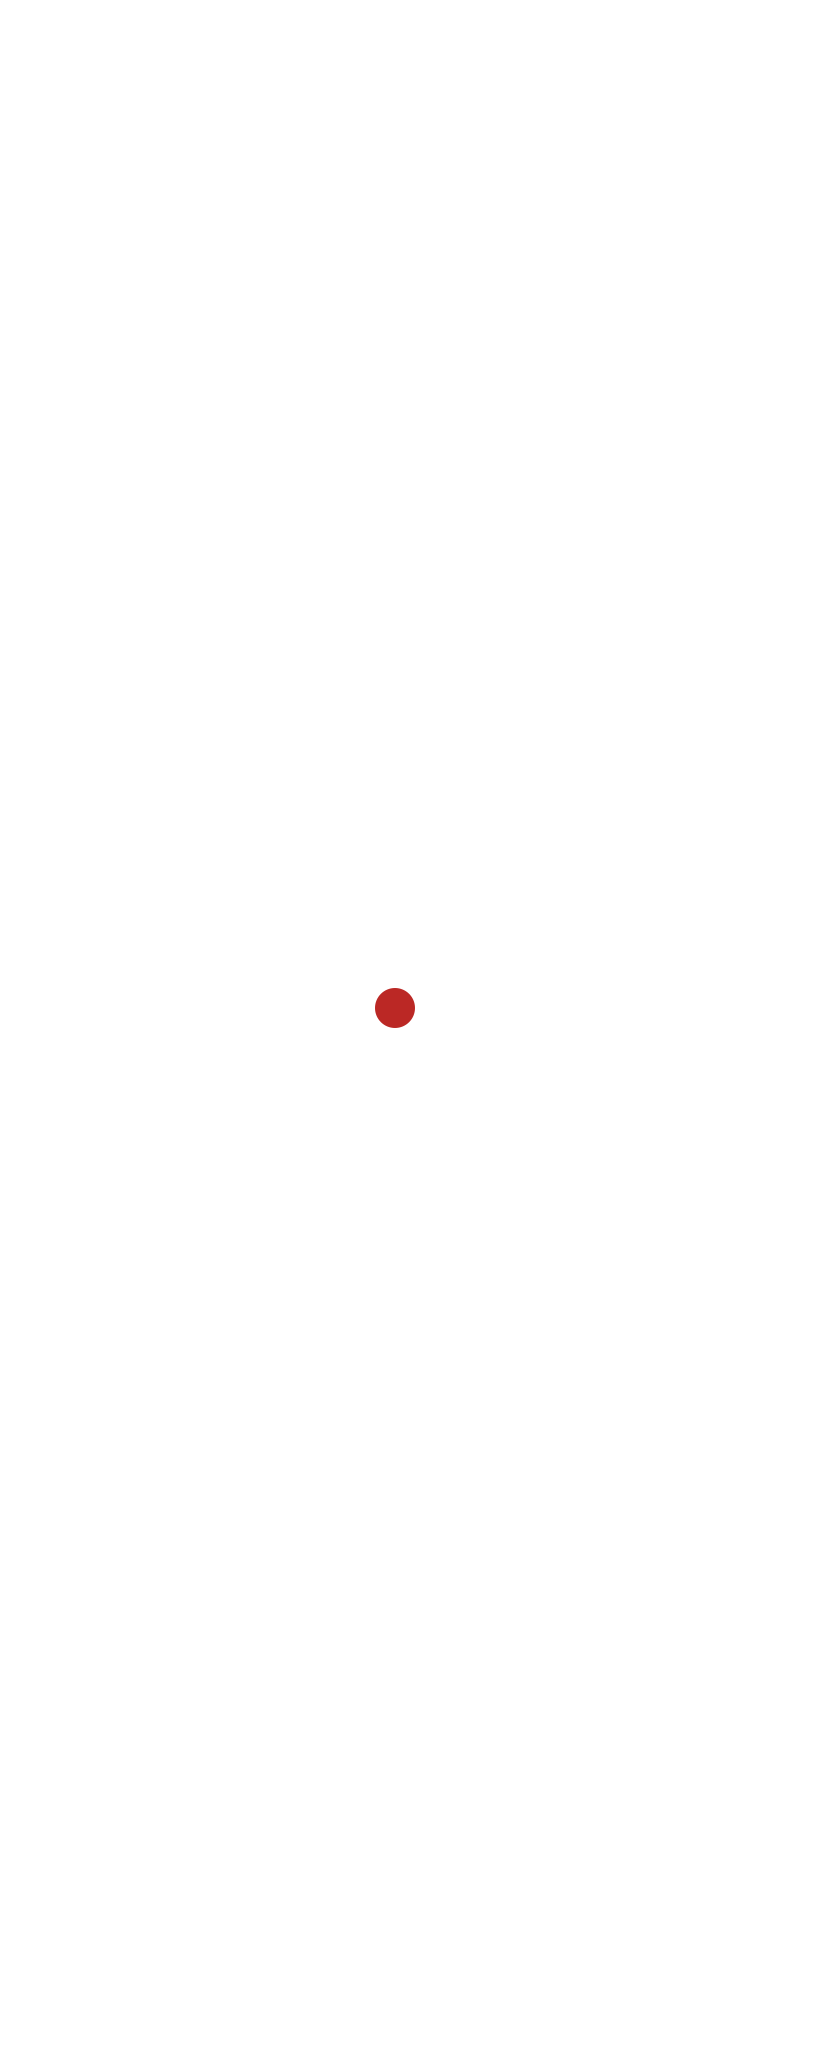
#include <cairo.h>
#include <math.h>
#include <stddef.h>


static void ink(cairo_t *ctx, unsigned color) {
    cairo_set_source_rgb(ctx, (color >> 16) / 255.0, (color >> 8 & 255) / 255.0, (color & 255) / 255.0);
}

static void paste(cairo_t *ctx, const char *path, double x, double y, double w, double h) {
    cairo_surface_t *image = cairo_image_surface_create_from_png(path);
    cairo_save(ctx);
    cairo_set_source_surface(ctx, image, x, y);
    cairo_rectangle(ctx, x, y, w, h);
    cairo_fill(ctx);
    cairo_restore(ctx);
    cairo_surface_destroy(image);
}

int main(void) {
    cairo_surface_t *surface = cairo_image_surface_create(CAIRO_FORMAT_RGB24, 828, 2056);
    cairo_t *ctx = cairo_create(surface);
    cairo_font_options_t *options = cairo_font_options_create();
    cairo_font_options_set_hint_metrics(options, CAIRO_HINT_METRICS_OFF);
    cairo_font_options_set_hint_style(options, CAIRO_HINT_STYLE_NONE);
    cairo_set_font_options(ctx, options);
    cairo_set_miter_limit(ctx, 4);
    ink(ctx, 0xFFFFFF);
    cairo_paint(ctx);
    paste(ctx, "media/1.png", 0, 0, 828, 460);
    paste(ctx, "media/2.png", 27, 17, 121, 39);
    paste(ctx, "media/3.png", 15, 540, 383, 255);
    paste(ctx, "media/4.png", 112, 810, 94, 94);
    paste(ctx, "media/5.png", 207, 810, 94, 94);
    paste(ctx, "media/6.png", 15, 1261, 245, 246);
    paste(ctx, "media/6.png", 291, 1261, 245, 246);
    paste(ctx, "media/7.png", 566, 1261, 246, 246);
    ink(ctx, 0xBB2825);
    cairo_arc(ctx, 395, 1008, 20, 0, 2 * M_PI);
    cairo_fill(ctx);
    cairo_surface_write_to_png(surface, "image.png");
    cairo_font_options_destroy(options);
    cairo_destroy(ctx);
    cairo_surface_destroy(surface);
    return 0;
}
